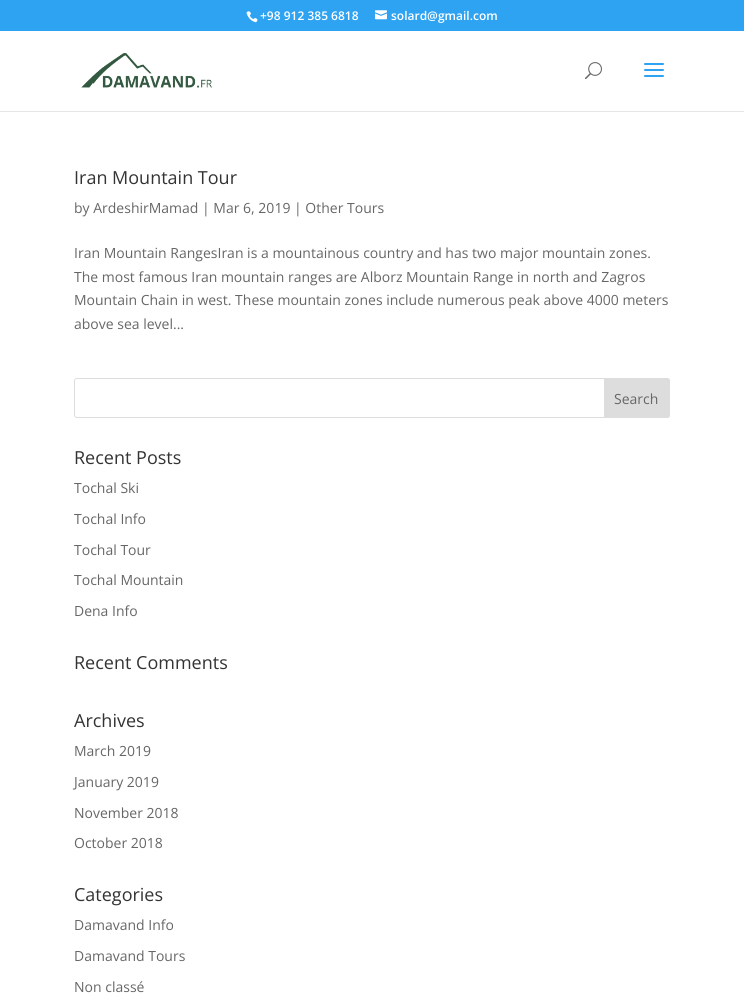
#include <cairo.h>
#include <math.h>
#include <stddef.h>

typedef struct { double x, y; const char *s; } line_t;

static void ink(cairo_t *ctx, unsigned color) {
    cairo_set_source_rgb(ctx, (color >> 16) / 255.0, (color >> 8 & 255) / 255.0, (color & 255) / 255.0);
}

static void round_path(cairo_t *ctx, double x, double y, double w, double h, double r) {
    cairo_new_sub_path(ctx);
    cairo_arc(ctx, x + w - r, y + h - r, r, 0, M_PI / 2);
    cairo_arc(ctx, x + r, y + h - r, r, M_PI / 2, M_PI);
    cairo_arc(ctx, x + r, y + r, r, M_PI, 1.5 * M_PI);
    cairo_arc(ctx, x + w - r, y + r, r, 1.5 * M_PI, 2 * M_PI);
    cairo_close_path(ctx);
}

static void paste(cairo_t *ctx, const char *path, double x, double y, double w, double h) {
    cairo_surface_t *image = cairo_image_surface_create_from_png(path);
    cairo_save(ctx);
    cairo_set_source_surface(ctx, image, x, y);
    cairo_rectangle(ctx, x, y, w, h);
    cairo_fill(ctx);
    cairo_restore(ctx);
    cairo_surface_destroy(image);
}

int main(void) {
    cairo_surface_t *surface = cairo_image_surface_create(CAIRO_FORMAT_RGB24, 744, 994);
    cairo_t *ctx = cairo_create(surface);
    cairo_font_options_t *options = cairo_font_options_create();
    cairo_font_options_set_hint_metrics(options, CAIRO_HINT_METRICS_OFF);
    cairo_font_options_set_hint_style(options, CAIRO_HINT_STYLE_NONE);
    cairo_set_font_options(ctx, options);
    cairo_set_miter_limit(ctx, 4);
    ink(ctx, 0xFFFFFF);
    cairo_paint(ctx);
    ink(ctx, 0x2EA3F2);
    cairo_rectangle(ctx, 0, 0, 744, 31);
    cairo_fill(ctx);
    paste(ctx, "media/1.png", 246, 11, 12, 12);
    cairo_select_font_face(ctx, "Open Sans SemiBold", CAIRO_FONT_SLANT_NORMAL, CAIRO_FONT_WEIGHT_NORMAL);
    cairo_set_font_size(ctx, 12);
    ink(ctx, 0xFFFFFF);
    cairo_move_to(ctx, 260, 20);
    cairo_show_text(ctx, "+98 912 385 6818");
    paste(ctx, "media/2.png", 375, 10, 12, 10);
    cairo_move_to(ctx, 391, 20);
    cairo_show_text(ctx, "solard@gmail.com");
    ink(ctx, 0xE6E6E6);
    cairo_rectangle(ctx, 0, 111, 744, 1);
    cairo_fill(ctx);
    paste(ctx, "media/3.png", 81, 53, 131, 35);
    paste(ctx, "media/4.png", 585, 62, 17, 18);
    paste(ctx, "media/5.png", 644, 63, 20, 14);
    cairo_select_font_face(ctx, "Open Sans", CAIRO_FONT_SLANT_NORMAL, CAIRO_FONT_WEIGHT_NORMAL);
    cairo_set_font_size(ctx, 18);
    ink(ctx, 0x333333);
    cairo_move_to(ctx, 74, 184);
    cairo_show_text(ctx, "Iran Mountain Tour");
    cairo_set_font_size(ctx, 14);
    ink(ctx, 0x666666);
    {
        static const line_t items[] = {
            {74, 213, "by ArdeshirMamad | Mar 6, 2019 | Other Tours"},
            {74, 258, "Iran Mountain RangesIran is a mountainous country and has two major mountain zones."},
            {74, 282, "The most famous Iran mountain ranges are Alborz Mountain Range in north and Zagros"},
            {74, 305, "Mountain Chain in west. These mountain zones include numerous peak above 4000 meters"},
            {74, 329, "above sea level..."},
        };
        for (size_t i = 0; i < sizeof items / sizeof *items; i++) {
            cairo_move_to(ctx, items[i].x, items[i].y);
            cairo_show_text(ctx, items[i].s);
        }
    }
    round_path(ctx, 74.5, 378.5, 595, 39, 2.5);
    ink(ctx, 0xDDDDDD);
    cairo_set_line_width(ctx, 1);
    cairo_stroke(ctx);
    cairo_new_path(ctx);
    cairo_move_to(ctx, 604.5, 378.5);
    cairo_line_to(ctx, 667, 378.5);
    cairo_curve_to(ctx, 668.5, 378.5, 669.5, 379.5, 669.5, 381);
    cairo_line_to(ctx, 669.5, 415);
    cairo_curve_to(ctx, 669.5, 416.5, 668.5, 417.5, 667, 417.5);
    cairo_line_to(ctx, 604.5, 417.5);
    cairo_close_path(ctx);
    cairo_fill_preserve(ctx);
    cairo_stroke(ctx);
    ink(ctx, 0x666666);
    cairo_move_to(ctx, 614, 404);
    cairo_show_text(ctx, "Search");
    cairo_set_font_size(ctx, 18);
    ink(ctx, 0x333333);
    cairo_move_to(ctx, 74, 464);
    cairo_show_text(ctx, "Recent Posts");
    cairo_set_font_size(ctx, 14);
    ink(ctx, 0x666666);
    {
        static const line_t items[] = {
            {74, 493, "Tochal Ski"},
            {74, 524, "Tochal Info"},
            {74, 555, "Tochal Tour"},
            {74, 585, "Tochal Mountain"},
            {74, 616, "Dena Info"},
        };
        for (size_t i = 0; i < sizeof items / sizeof *items; i++) {
            cairo_move_to(ctx, items[i].x, items[i].y);
            cairo_show_text(ctx, items[i].s);
        }
    }
    cairo_set_font_size(ctx, 18);
    ink(ctx, 0x333333);
    cairo_move_to(ctx, 74, 669);
    cairo_show_text(ctx, "Recent Comments");
    cairo_move_to(ctx, 74, 727);
    cairo_show_text(ctx, "Archives");
    cairo_set_font_size(ctx, 14);
    ink(ctx, 0x666666);
    {
        static const line_t items[] = {
            {74, 756, "March 2019"},
            {74, 787, "January 2019"},
            {74, 818, "November 2018"},
            {74, 848, "October 2018"},
        };
        for (size_t i = 0; i < sizeof items / sizeof *items; i++) {
            cairo_move_to(ctx, items[i].x, items[i].y);
            cairo_show_text(ctx, items[i].s);
        }
    }
    cairo_set_font_size(ctx, 18);
    ink(ctx, 0x333333);
    cairo_move_to(ctx, 74, 901);
    cairo_show_text(ctx, "Categories");
    cairo_set_font_size(ctx, 14);
    ink(ctx, 0x666666);
    {
        static const line_t items[] = {
            {74, 930, "Damavand Info"},
            {74, 961, "Damavand Tours"},
            {74, 992, "Non classé"},
        };
        for (size_t i = 0; i < sizeof items / sizeof *items; i++) {
            cairo_move_to(ctx, items[i].x, items[i].y);
            cairo_show_text(ctx, items[i].s);
        }
    }
    cairo_surface_write_to_png(surface, "image.png");
    cairo_font_options_destroy(options);
    cairo_destroy(ctx);
    cairo_surface_destroy(surface);
    return 0;
}
